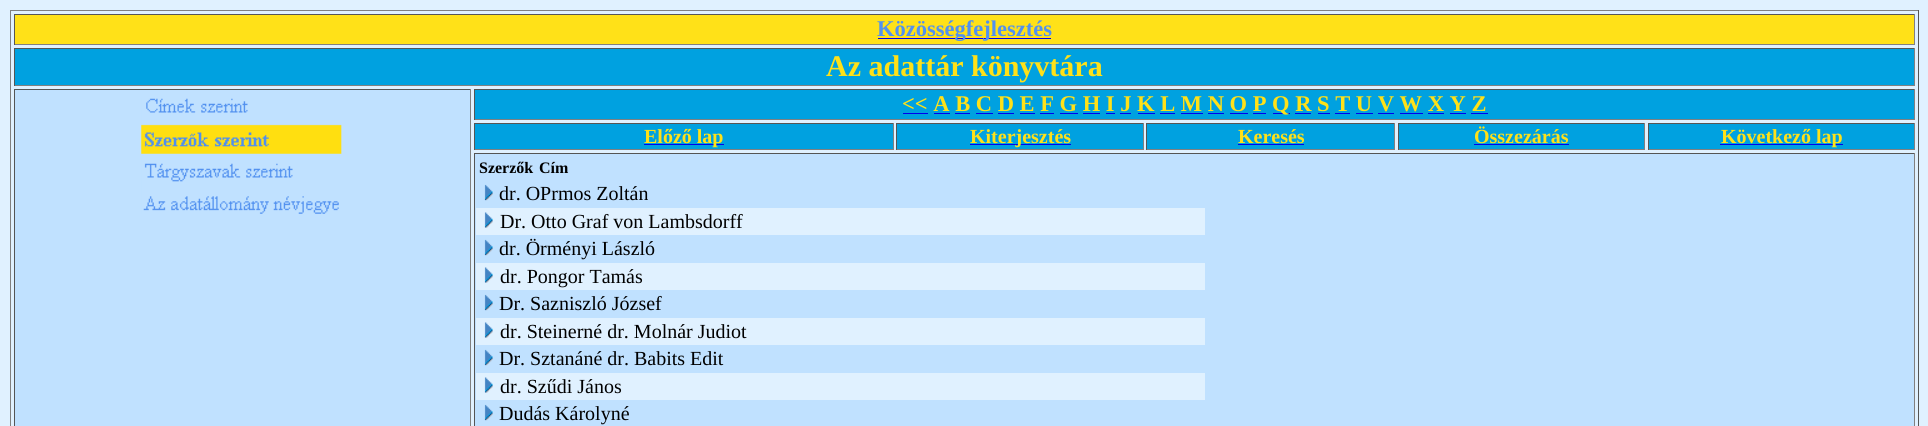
#include <cairo.h>
#include <math.h>
#include <stddef.h>

typedef struct { double x, y, w, h; unsigned color; } box_t;

static void ink(cairo_t *ctx, unsigned color) {
    cairo_set_source_rgb(ctx, (color >> 16) / 255.0, (color >> 8 & 255) / 255.0, (color & 255) / 255.0);
}

static void paste(cairo_t *ctx, const char *path, double x, double y, double w, double h) {
    cairo_surface_t *image = cairo_image_surface_create_from_png(path);
    cairo_save(ctx);
    cairo_set_source_surface(ctx, image, x, y);
    cairo_rectangle(ctx, x, y, w, h);
    cairo_fill(ctx);
    cairo_restore(ctx);
    cairo_surface_destroy(image);
}

int main(void) {
    cairo_surface_t *surface = cairo_image_surface_create(CAIRO_FORMAT_RGB24, 1928, 426);
    cairo_t *ctx = cairo_create(surface);
    cairo_font_options_t *options = cairo_font_options_create();
    cairo_font_options_set_hint_metrics(options, CAIRO_HINT_METRICS_OFF);
    cairo_font_options_set_hint_style(options, CAIRO_HINT_STYLE_NONE);
    cairo_set_font_options(ctx, options);
    cairo_set_miter_limit(ctx, 4);
    ink(ctx, 0xE0F1FF);
    cairo_paint(ctx);
    {
        static const box_t items[] = {
            {10, 10, 1909, 1, 0x808080},
            {1918, 10, 1, 416, 0x555555},
            {10, 10, 1, 416, 0x808080},
            {15, 15, 1899, 29, 0xFFE118},
            {14, 14, 1901, 1, 0x555555},
            {1914, 14, 1, 31, 0x808080},
            {14, 44, 1901, 1, 0x808080},
            {14, 14, 1, 31, 0x555555},
            {878, 38, 173, 1, 0x0000EE},
        };
        for (size_t i = 0; i < sizeof items / sizeof *items; i++) {
            ink(ctx, items[i].color);
            cairo_rectangle(ctx, items[i].x, items[i].y, items[i].w, items[i].h);
            cairo_fill(ctx);
        }
    }
    cairo_select_font_face(ctx, "Liberation Serif", CAIRO_FONT_SLANT_NORMAL, CAIRO_FONT_WEIGHT_BOLD);
    cairo_set_font_size(ctx, 22.5);
    ink(ctx, 0x5291EF);
    cairo_move_to(ctx, 877, 36);
    cairo_show_text(ctx, "Közösségfejlesztés");
    {
        static const box_t items[] = {
            {15, 49, 1899, 36, 0x00A1E0},
            {14, 48, 1901, 1, 0x555555},
            {1914, 48, 1, 38, 0x808080},
            {14, 85, 1901, 1, 0x808080},
            {14, 48, 1, 38, 0x555555},
        };
        for (size_t i = 0; i < sizeof items / sizeof *items; i++) {
            ink(ctx, items[i].color);
            cairo_rectangle(ctx, items[i].x, items[i].y, items[i].w, items[i].h);
            cairo_fill(ctx);
        }
    }
    cairo_set_font_size(ctx, 30);
    ink(ctx, 0xFFE118);
    cairo_move_to(ctx, 826, 76);
    cairo_show_text(ctx, "Az adattár könyvtára");
    {
        static const box_t items[] = {
            {15, 90, 455, 336, 0xC0E1FF},
            {14, 89, 457, 1, 0x555555},
            {470, 89, 1, 337, 0x808080},
            {14, 89, 1, 337, 0x555555},
        };
        for (size_t i = 0; i < sizeof items / sizeof *items; i++) {
            ink(ctx, items[i].color);
            cairo_rectangle(ctx, items[i].x, items[i].y, items[i].w, items[i].h);
            cairo_fill(ctx);
        }
    }
    paste(ctx, "media/1.png", 141, 98, 201, 116);
    {
        static const box_t items[] = {
            {475, 90, 1439, 29, 0x00A1E0},
            {474, 89, 1441, 1, 0x555555},
            {1914, 89, 1, 31, 0x808080},
            {474, 119, 1441, 1, 0x808080},
            {474, 89, 1, 31, 0x555555},
        };
        for (size_t i = 0; i < sizeof items / sizeof *items; i++) {
            ink(ctx, items[i].color);
            cairo_rectangle(ctx, items[i].x, items[i].y, items[i].w, items[i].h);
            cairo_fill(ctx);
        }
    }
    cairo_set_font_size(ctx, 22.5);
    ink(ctx, 0xFFE118);
    cairo_move_to(ctx, 902, 111);
    cairo_show_text(ctx, "<< A B C D E F G H I J K L M N O P");
    ink(ctx, 0x0000EE);
    cairo_rectangle(ctx, 903, 113, 25, 1);
    cairo_fill(ctx);
    cairo_rectangle(ctx, 1273, 113, 17, 1);
    cairo_fill(ctx);
    ink(ctx, 0xFFE118);
    cairo_move_to(ctx, 1272, 111);
    cairo_show_text(ctx, "Q R S T U V W X Y Z");
    {
        static const box_t items[] = {
            {934, 113, 16, 1, 0x0000EE},
            {955, 113, 15, 1, 0x0000EE},
            {976, 113, 17, 1, 0x0000EE},
            {998, 113, 16, 1, 0x0000EE},
            {1020, 113, 15, 1, 0x0000EE},
            {1040, 113, 14, 1, 0x0000EE},
            {1060, 113, 18, 1, 0x0000EE},
            {1083, 113, 17, 1, 0x0000EE},
            {1106, 113, 9, 1, 0x0000EE},
            {1120, 113, 11, 1, 0x0000EE},
            {1138, 113, 17, 1, 0x0000EE},
            {1160, 113, 15, 1, 0x0000EE},
            {1181, 113, 22, 1, 0x0000EE},
            {1208, 113, 16, 1, 0x0000EE},
            {1230, 113, 18, 1, 0x0000EE},
            {1253, 113, 13, 1, 0x0000EE},
            {1295, 113, 16, 1, 0x0000EE},
            {1318, 113, 12, 1, 0x0000EE},
            {1335, 113, 15, 1, 0x0000EE},
            {1356, 113, 17, 1, 0x0000EE},
            {1378, 113, 16, 1, 0x0000EE},
            {1400, 113, 23, 1, 0x0000EE},
            {1428, 113, 16, 1, 0x0000EE},
            {1450, 113, 16, 1, 0x0000EE},
            {1471, 113, 17, 1, 0x0000EE},
            {475, 124, 418, 25, 0x00A1E0},
            {474, 123, 420, 1, 0x555555},
            {893, 123, 1, 27, 0x808080},
            {474, 149, 420, 1, 0x808080},
            {474, 123, 1, 27, 0x555555},
            {644, 144, 80, 1, 0x0000EE},
        };
        for (size_t i = 0; i < sizeof items / sizeof *items; i++) {
            ink(ctx, items[i].color);
            cairo_rectangle(ctx, items[i].x, items[i].y, items[i].w, items[i].h);
            cairo_fill(ctx);
        }
    }
    cairo_set_font_size(ctx, 20);
    ink(ctx, 0xFFE118);
    cairo_move_to(ctx, 644, 143);
    cairo_show_text(ctx, "Előző lap");
    {
        static const box_t items[] = {
            {897, 124, 246, 25, 0x00A1E0},
            {896, 123, 248, 1, 0x555555},
            {1143, 123, 1, 27, 0x808080},
            {896, 149, 248, 1, 0x808080},
            {896, 123, 1, 27, 0x555555},
            {970, 144, 101, 1, 0x0000EE},
        };
        for (size_t i = 0; i < sizeof items / sizeof *items; i++) {
            ink(ctx, items[i].color);
            cairo_rectangle(ctx, items[i].x, items[i].y, items[i].w, items[i].h);
            cairo_fill(ctx);
        }
    }
    ink(ctx, 0xFFE118);
    cairo_move_to(ctx, 970, 143);
    cairo_show_text(ctx, "Kiterjesztés");
    {
        static const box_t items[] = {
            {1147, 124, 247, 25, 0x00A1E0},
            {1146, 123, 249, 1, 0x555555},
            {1394, 123, 1, 27, 0x808080},
            {1146, 149, 249, 1, 0x808080},
            {1146, 123, 1, 27, 0x555555},
        };
        for (size_t i = 0; i < sizeof items / sizeof *items; i++) {
            ink(ctx, items[i].color);
            cairo_rectangle(ctx, items[i].x, items[i].y, items[i].w, items[i].h);
            cairo_fill(ctx);
        }
    }
    ink(ctx, 0xFFE118);
    cairo_move_to(ctx, 1238, 143);
    cairo_show_text(ctx, "Keresés");
    {
        static const box_t items[] = {
            {1238, 144, 66, 1, 0x0000EE},
            {1399, 124, 245, 25, 0x00A1E0},
            {1398, 123, 247, 1, 0x555555},
            {1644, 123, 1, 27, 0x808080},
            {1398, 149, 247, 1, 0x808080},
            {1398, 123, 1, 27, 0x555555},
        };
        for (size_t i = 0; i < sizeof items / sizeof *items; i++) {
            ink(ctx, items[i].color);
            cairo_rectangle(ctx, items[i].x, items[i].y, items[i].w, items[i].h);
            cairo_fill(ctx);
        }
    }
    ink(ctx, 0xFFE118);
    cairo_move_to(ctx, 1474, 143);
    cairo_show_text(ctx, "Összezárás");
    {
        static const box_t items[] = {
            {1474, 144, 95, 1, 0x0000EE},
            {1649, 124, 265, 25, 0x00A1E0},
            {1648, 123, 267, 1, 0x555555},
            {1914, 123, 1, 27, 0x808080},
            {1648, 149, 267, 1, 0x808080},
            {1648, 123, 1, 27, 0x555555},
            {1720, 144, 123, 1, 0x0000EE},
        };
        for (size_t i = 0; i < sizeof items / sizeof *items; i++) {
            ink(ctx, items[i].color);
            cairo_rectangle(ctx, items[i].x, items[i].y, items[i].w, items[i].h);
            cairo_fill(ctx);
        }
    }
    ink(ctx, 0xFFE118);
    cairo_move_to(ctx, 1721, 143);
    cairo_show_text(ctx, "Következő lap");
    {
        static const box_t items[] = {
            {475, 154, 1439, 272, 0xC0E1FF},
            {474, 153, 1441, 1, 0x555555},
            {1914, 153, 1, 273, 0x808080},
            {474, 153, 1, 273, 0x555555},
        };
        for (size_t i = 0; i < sizeof items / sizeof *items; i++) {
            ink(ctx, items[i].color);
            cairo_rectangle(ctx, items[i].x, items[i].y, items[i].w, items[i].h);
            cairo_fill(ctx);
        }
    }
    cairo_set_font_size(ctx, 16);
    ink(ctx, 0x000000);
    cairo_move_to(ctx, 479, 173);
    cairo_show_text(ctx, "Szerzők");
    cairo_move_to(ctx, 539, 173);
    cairo_show_text(ctx, "Cím");
    paste(ctx, "media/2.png", 484, 184, 9, 17);
    cairo_select_font_face(ctx, "Liberation Serif", CAIRO_FONT_SLANT_NORMAL, CAIRO_FONT_WEIGHT_NORMAL);
    cairo_set_font_size(ctx, 20);
    cairo_move_to(ctx, 499, 200);
    cairo_show_text(ctx, "dr. OPrmos Zoltán");
    ink(ctx, 0xE0F1FF);
    cairo_rectangle(ctx, 476, 208, 729, 27);
    cairo_fill(ctx);
    paste(ctx, "media/3.png", 484, 212, 9, 16);
    ink(ctx, 0x000000);
    cairo_move_to(ctx, 500, 228);
    cairo_show_text(ctx, "Dr. Otto Graf von Lambsdorff");
    paste(ctx, "media/2.png", 484, 239, 9, 17);
    cairo_move_to(ctx, 499, 255);
    cairo_show_text(ctx, "dr. Örményi László");
    ink(ctx, 0xE0F1FF);
    cairo_rectangle(ctx, 476, 263, 729, 27);
    cairo_fill(ctx);
    paste(ctx, "media/3.png", 484, 267, 9, 16);
    ink(ctx, 0x000000);
    cairo_move_to(ctx, 500, 283);
    cairo_show_text(ctx, "dr. Pongor Tamás");
    paste(ctx, "media/4.png", 484, 294, 9, 17);
    cairo_move_to(ctx, 499, 310);
    cairo_show_text(ctx, "Dr. Sazniszló József");
    ink(ctx, 0xE0F1FF);
    cairo_rectangle(ctx, 476, 318, 729, 27);
    cairo_fill(ctx);
    paste(ctx, "media/3.png", 484, 322, 9, 16);
    ink(ctx, 0x000000);
    cairo_move_to(ctx, 500, 338);
    cairo_show_text(ctx, "dr. Steinerné dr. Molnár Judiot");
    paste(ctx, "media/2.png", 484, 349, 9, 17);
    cairo_move_to(ctx, 499, 365);
    cairo_show_text(ctx, "Dr. Sztanáné dr. Babits Edit");
    ink(ctx, 0xE0F1FF);
    cairo_rectangle(ctx, 476, 373, 729, 27);
    cairo_fill(ctx);
    paste(ctx, "media/3.png", 484, 377, 9, 16);
    ink(ctx, 0x000000);
    cairo_move_to(ctx, 500, 393);
    cairo_show_text(ctx, "dr. Szűdi János");
    paste(ctx, "media/2.png", 484, 404, 9, 17);
    cairo_move_to(ctx, 499, 420);
    cairo_show_text(ctx, "Dudás Károlyné");
    cairo_surface_write_to_png(surface, "image.png");
    cairo_font_options_destroy(options);
    cairo_destroy(ctx);
    cairo_surface_destroy(surface);
    return 0;
}
